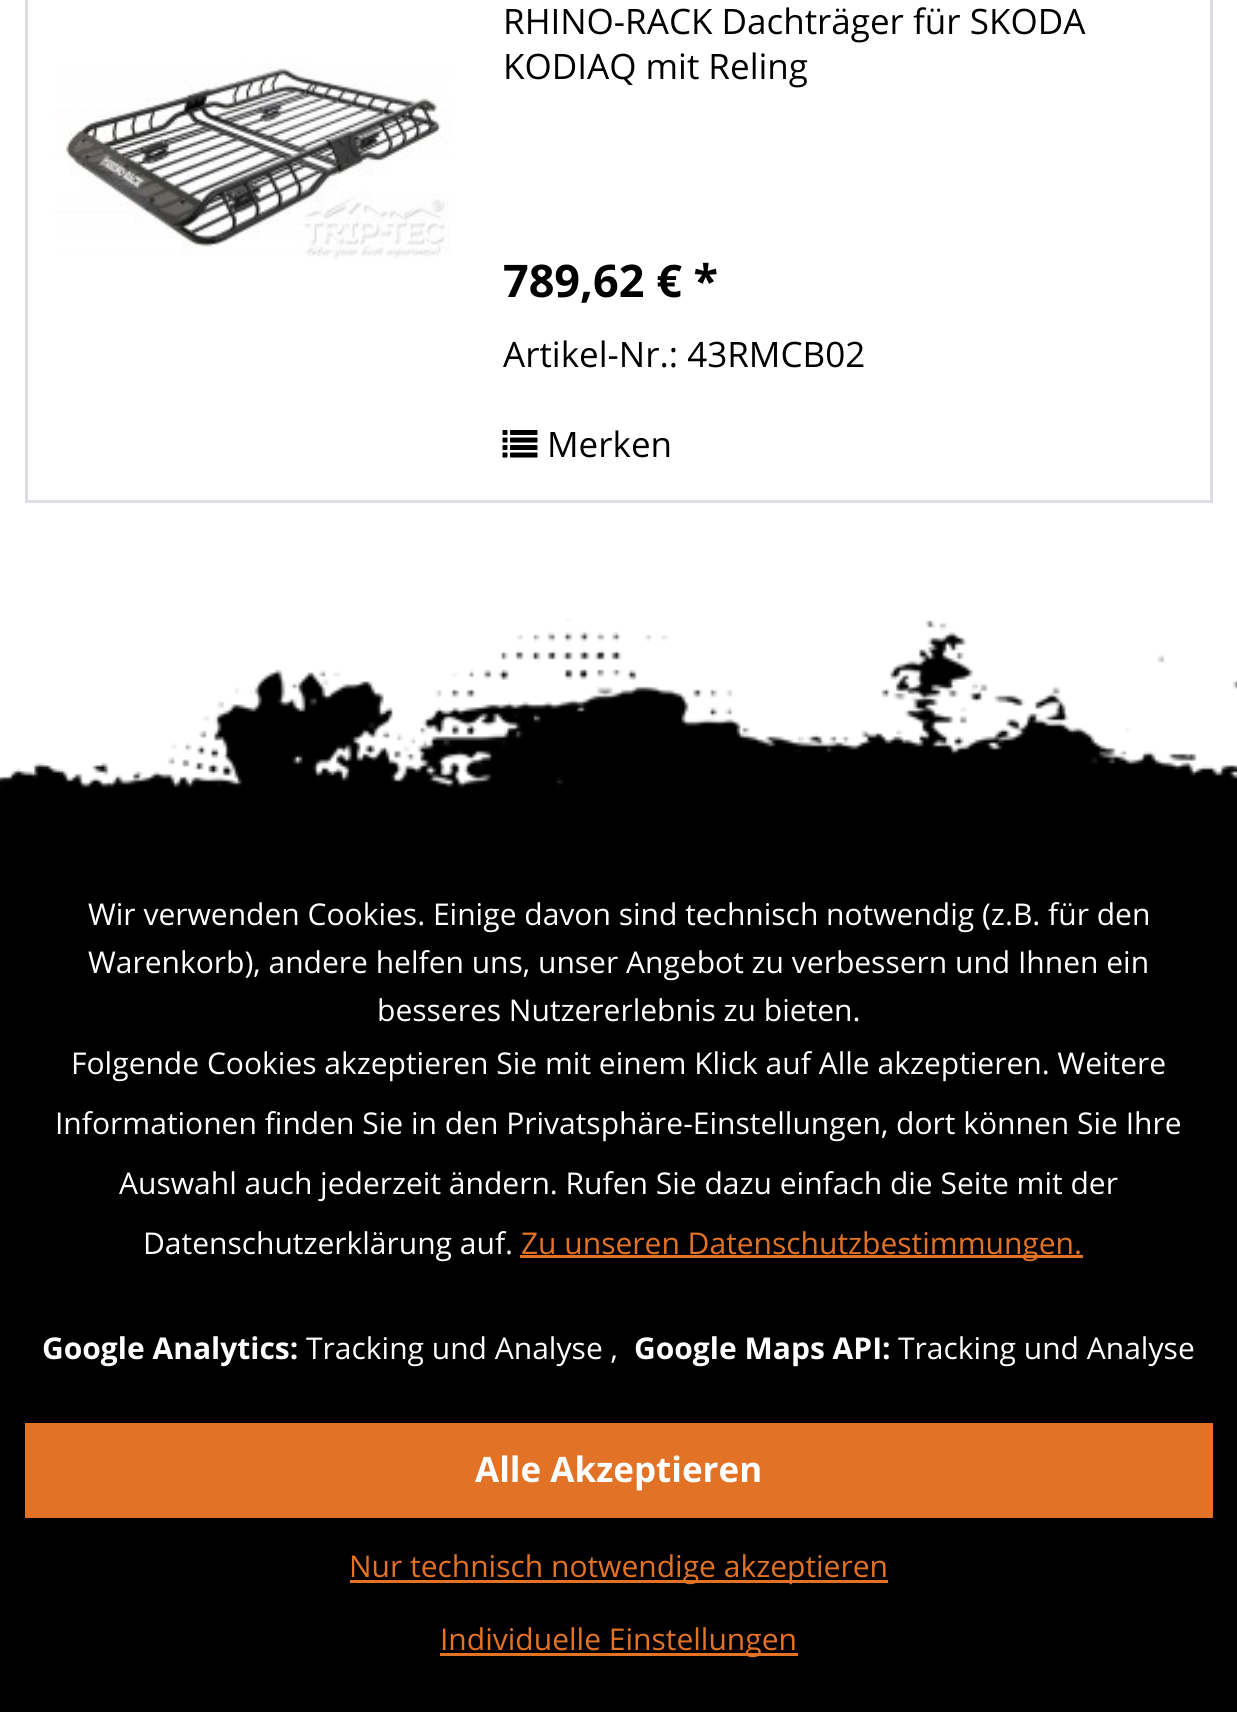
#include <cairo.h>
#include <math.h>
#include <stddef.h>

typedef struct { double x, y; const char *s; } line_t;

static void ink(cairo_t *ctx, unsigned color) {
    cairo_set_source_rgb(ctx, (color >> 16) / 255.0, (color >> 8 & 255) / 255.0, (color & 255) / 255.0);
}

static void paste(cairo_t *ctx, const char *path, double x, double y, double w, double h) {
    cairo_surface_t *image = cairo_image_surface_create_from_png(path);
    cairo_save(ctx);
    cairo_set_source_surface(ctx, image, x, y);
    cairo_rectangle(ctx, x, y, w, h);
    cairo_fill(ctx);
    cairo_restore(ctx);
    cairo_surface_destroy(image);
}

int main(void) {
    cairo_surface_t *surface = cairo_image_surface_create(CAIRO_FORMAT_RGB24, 1237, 1712);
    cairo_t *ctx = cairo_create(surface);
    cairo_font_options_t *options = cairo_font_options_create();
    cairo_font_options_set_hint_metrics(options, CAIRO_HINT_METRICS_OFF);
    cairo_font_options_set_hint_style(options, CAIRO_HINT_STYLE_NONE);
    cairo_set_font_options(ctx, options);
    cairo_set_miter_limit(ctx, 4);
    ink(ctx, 0xFFFFFF);
    cairo_paint(ctx);
    cairo_rectangle(ctx, 26.5, -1.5, 1185, 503);
    ink(ctx, 0xDDDDE7);
    cairo_set_line_width(ctx, 3);
    cairo_stroke(ctx);
    cairo_select_font_face(ctx, "Open Sans", CAIRO_FONT_SLANT_NORMAL, CAIRO_FONT_WEIGHT_NORMAL);
    cairo_set_font_size(ctx, 35);
    ink(ctx, 0x000000);
    cairo_move_to(ctx, 503, 34);
    cairo_show_text(ctx, "RHINO-RACK Dachträger für SKODA");
    cairo_move_to(ctx, 503, 79);
    cairo_show_text(ctx, "KODIAQ mit Reling");
    paste(ctx, "media/1.png", 55, 63, 395, 197);
    cairo_select_font_face(ctx, "Open Sans", CAIRO_FONT_SLANT_NORMAL, CAIRO_FONT_WEIGHT_BOLD);
    cairo_set_font_size(ctx, 45);
    cairo_move_to(ctx, 503, 297);
    cairo_show_text(ctx, "789,62 € *");
    cairo_select_font_face(ctx, "Open Sans", CAIRO_FONT_SLANT_NORMAL, CAIRO_FONT_WEIGHT_NORMAL);
    cairo_set_font_size(ctx, 35);
    cairo_move_to(ctx, 503, 367);
    cairo_show_text(ctx, "Artikel-Nr.: 43RMCB02");
    paste(ctx, "media/2.png", 502, 430, 36, 28);
    cairo_move_to(ctx, 547, 457);
    cairo_show_text(ctx, "Merken");
    paste(ctx, "media/3.png", 0, 618, 1237, 247);
    cairo_rectangle(ctx, 0, 865, 1237, 847);
    cairo_fill(ctx);
    cairo_set_font_size(ctx, 30);
    ink(ctx, 0xFFFFFF);
    {
        static const line_t items[] = {
            {88, 925, "Wir verwenden Cookies. Einige davon sind technisch notwendig (z.B. für den"},
            {88, 973, "Warenkorb), andere helfen uns, unser Angebot zu verbessern und Ihnen ein"},
            {377, 1021, "besseres Nutzererlebnis zu bieten."},
            {71, 1074, "Folgende Cookies akzeptieren Sie mit einem Klick auf Alle akzeptieren. Weitere"},
            {55, 1134, "Informationen finden Sie in den Privatsphäre-Einstellungen, dort können Sie Ihre"},
            {119, 1194, "Auswahl auch jederzeit ändern. Rufen Sie dazu einfach die Seite mit der"},
            {143, 1254, "Datenschutzerklärung auf."},
        };
        for (size_t i = 0; i < sizeof items / sizeof *items; i++) {
            cairo_move_to(ctx, items[i].x, items[i].y);
            cairo_show_text(ctx, items[i].s);
        }
    }
    ink(ctx, 0xE27226);
    cairo_rectangle(ctx, 520, 1255, 563, 3);
    cairo_fill(ctx);
    cairo_move_to(ctx, 521, 1254);
    cairo_show_text(ctx, "Zu unseren Datenschutzbestimmungen.");
    cairo_select_font_face(ctx, "Open Sans", CAIRO_FONT_SLANT_NORMAL, CAIRO_FONT_WEIGHT_BOLD);
    ink(ctx, 0xFFFFFF);
    cairo_move_to(ctx, 42, 1359);
    cairo_show_text(ctx, "Google Analytics:");
    cairo_select_font_face(ctx, "Open Sans", CAIRO_FONT_SLANT_NORMAL, CAIRO_FONT_WEIGHT_NORMAL);
    cairo_move_to(ctx, 306, 1359);
    cairo_show_text(ctx, "Tracking und Analyse ,");
    cairo_select_font_face(ctx, "Open Sans", CAIRO_FONT_SLANT_NORMAL, CAIRO_FONT_WEIGHT_BOLD);
    cairo_move_to(ctx, 634, 1359);
    cairo_show_text(ctx, "Google Maps API:");
    cairo_select_font_face(ctx, "Open Sans", CAIRO_FONT_SLANT_NORMAL, CAIRO_FONT_WEIGHT_NORMAL);
    cairo_move_to(ctx, 898, 1359);
    cairo_show_text(ctx, "Tracking und Analyse");
    ink(ctx, 0xE27226);
    cairo_rectangle(ctx, 25, 1423, 1188, 95);
    cairo_fill(ctx);
    cairo_select_font_face(ctx, "Open Sans", CAIRO_FONT_SLANT_NORMAL, CAIRO_FONT_WEIGHT_BOLD);
    cairo_set_font_size(ctx, 35);
    ink(ctx, 0xFFFFFF);
    cairo_move_to(ctx, 475, 1482);
    cairo_show_text(ctx, "Alle Akzeptieren");
    ink(ctx, 0xE27226);
    cairo_rectangle(ctx, 350, 1580, 538, 3);
    cairo_fill(ctx);
    cairo_select_font_face(ctx, "Open Sans", CAIRO_FONT_SLANT_NORMAL, CAIRO_FONT_WEIGHT_NORMAL);
    cairo_set_font_size(ctx, 30);
    cairo_move_to(ctx, 349, 1577);
    cairo_show_text(ctx, "Nur technisch notwendige akzeptieren");
    cairo_rectangle(ctx, 440, 1653, 358, 3);
    cairo_fill(ctx);
    cairo_move_to(ctx, 440, 1650);
    cairo_show_text(ctx, "Individuelle Einstellungen");
    cairo_surface_write_to_png(surface, "image.png");
    cairo_font_options_destroy(options);
    cairo_destroy(ctx);
    cairo_surface_destroy(surface);
    return 0;
}
